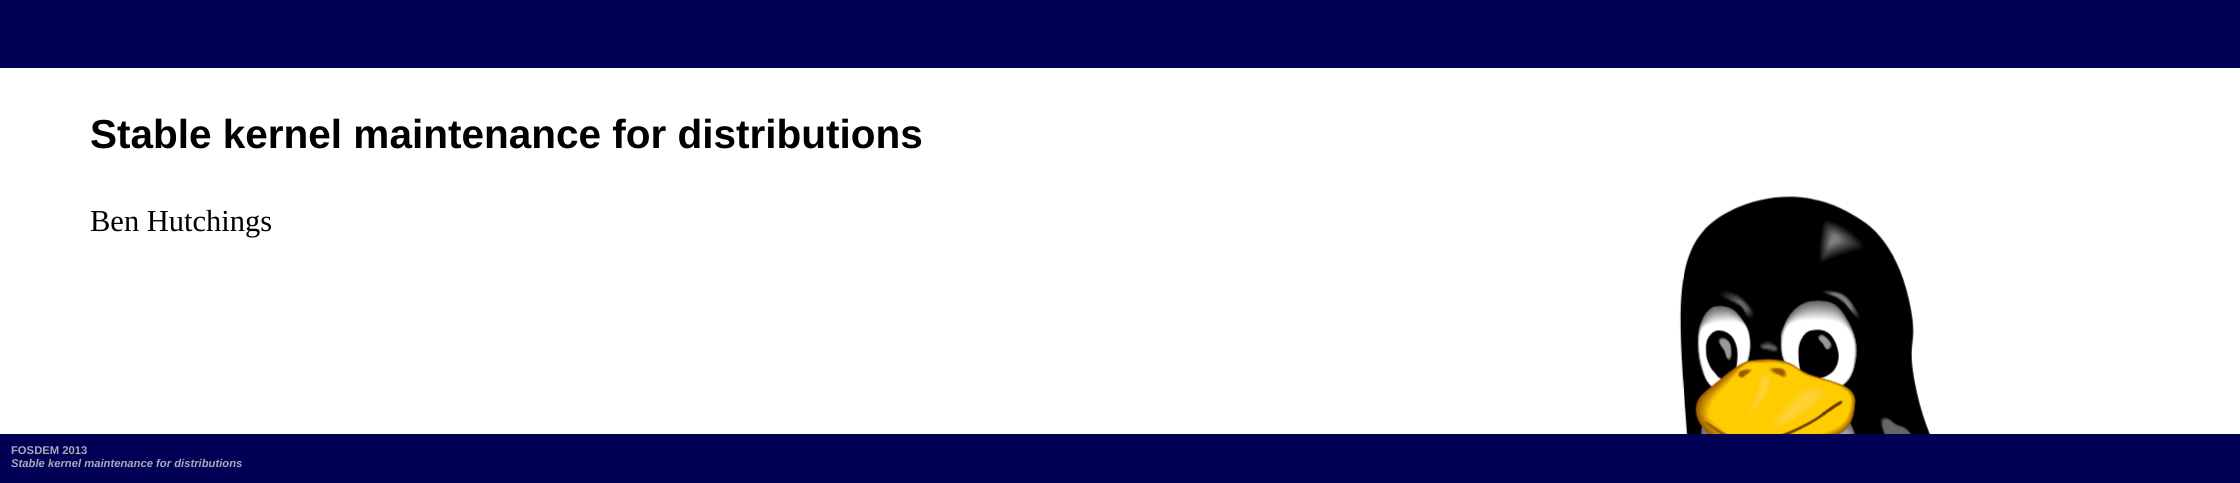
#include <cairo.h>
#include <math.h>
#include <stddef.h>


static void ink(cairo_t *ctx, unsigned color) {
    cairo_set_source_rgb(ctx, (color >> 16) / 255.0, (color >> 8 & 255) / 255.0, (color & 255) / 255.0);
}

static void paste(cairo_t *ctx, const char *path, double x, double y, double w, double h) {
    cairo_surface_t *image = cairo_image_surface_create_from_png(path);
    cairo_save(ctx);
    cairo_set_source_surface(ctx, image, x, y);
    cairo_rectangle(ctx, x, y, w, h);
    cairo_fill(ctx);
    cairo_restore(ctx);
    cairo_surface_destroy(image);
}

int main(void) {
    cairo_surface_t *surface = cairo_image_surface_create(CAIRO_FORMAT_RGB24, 2240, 483);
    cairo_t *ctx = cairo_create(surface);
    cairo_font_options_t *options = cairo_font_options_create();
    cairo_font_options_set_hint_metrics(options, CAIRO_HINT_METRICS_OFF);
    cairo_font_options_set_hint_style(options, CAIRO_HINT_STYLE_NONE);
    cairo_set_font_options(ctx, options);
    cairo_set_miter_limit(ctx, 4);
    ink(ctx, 0xFFFFFF);
    cairo_paint(ctx);
    cairo_select_font_face(ctx, "Liberation Sans", CAIRO_FONT_SLANT_NORMAL, CAIRO_FONT_WEIGHT_BOLD);
    cairo_set_font_size(ctx, 40.5);
    ink(ctx, 0x000000);
    cairo_move_to(ctx, 90, 148);
    cairo_show_text(ctx, "Stable kernel maintenance for distributions");
    cairo_select_font_face(ctx, "Liberation Serif", CAIRO_FONT_SLANT_NORMAL, CAIRO_FONT_WEIGHT_NORMAL);
    cairo_set_font_size(ctx, 30.5);
    cairo_move_to(ctx, 90, 231);
    cairo_show_text(ctx, "Ben Hutchings");
    paste(ctx, "media/1.png", 1679, 196, 251, 238);
    ink(ctx, 0x000055);
    cairo_rectangle(ctx, 0, 0, 2240, 68);
    cairo_fill(ctx);
    cairo_rectangle(ctx, 0, 434, 2240, 49);
    cairo_fill(ctx);
    cairo_select_font_face(ctx, "Liberation Sans", CAIRO_FONT_SLANT_NORMAL, CAIRO_FONT_WEIGHT_BOLD);
    cairo_set_font_size(ctx, 11.25);
    ink(ctx, 0xAAAABB);
    cairo_move_to(ctx, 11, 454);
    cairo_show_text(ctx, "FOSDEM 2013");
    cairo_select_font_face(ctx, "Liberation Sans", CAIRO_FONT_SLANT_ITALIC, CAIRO_FONT_WEIGHT_BOLD);
    cairo_move_to(ctx, 11, 467);
    cairo_show_text(ctx, "Stable kernel maintenance for distributions");
    cairo_surface_write_to_png(surface, "image.png");
    cairo_font_options_destroy(options);
    cairo_destroy(ctx);
    cairo_surface_destroy(surface);
    return 0;
}
